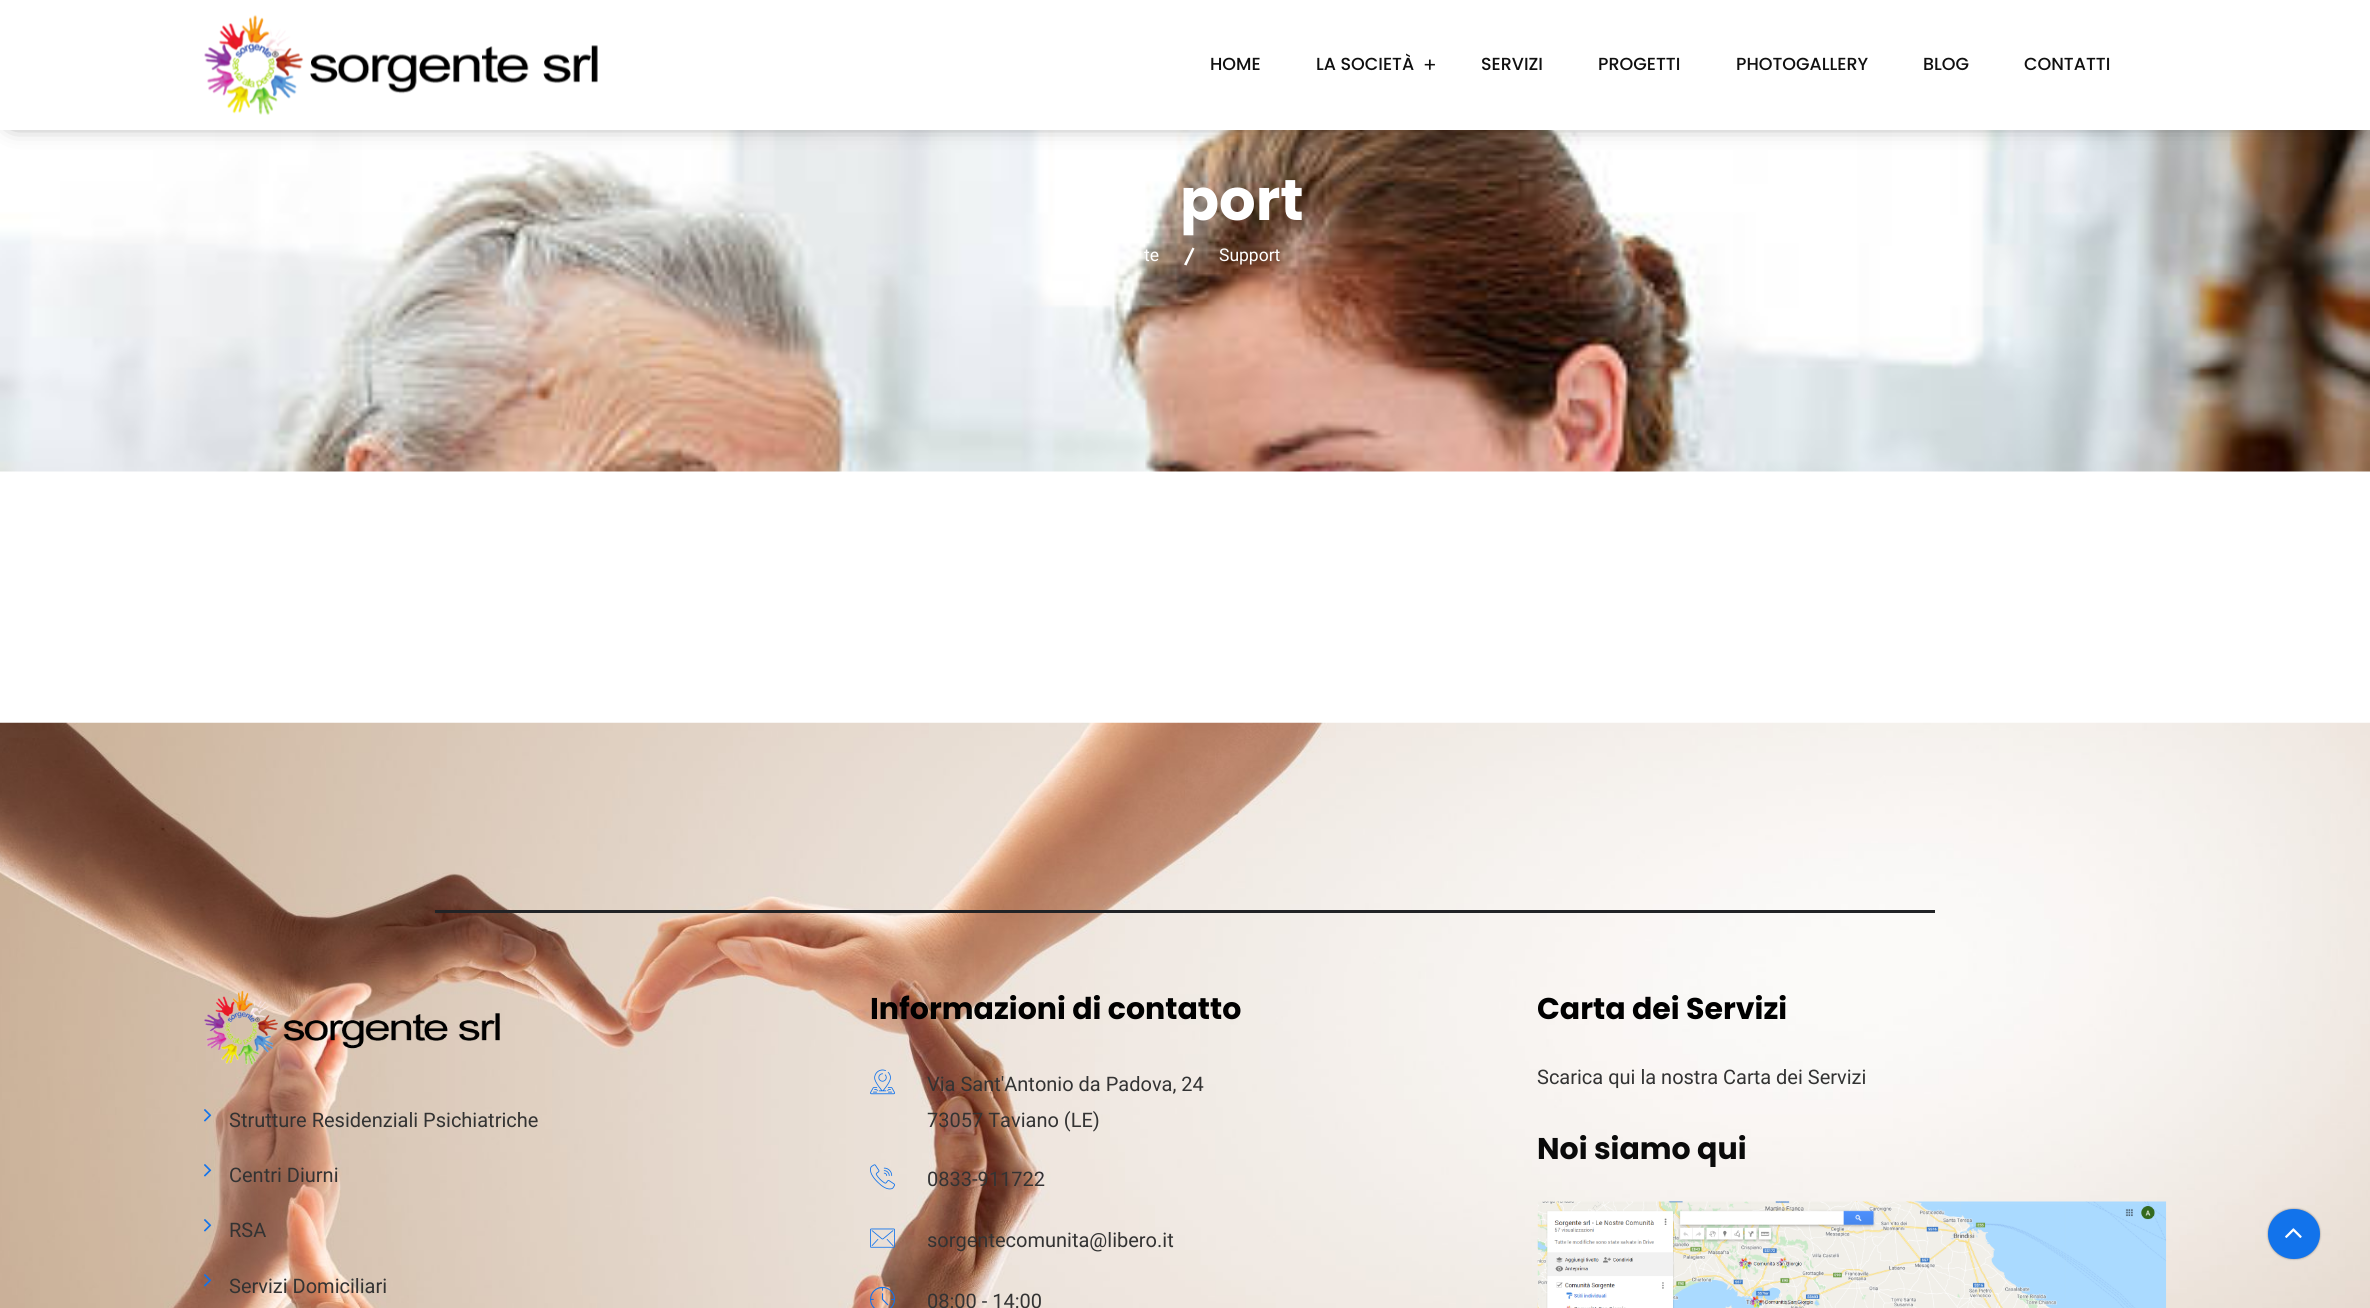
#include <cairo.h>
#include <math.h>
#include <stddef.h>

typedef struct { double x, y; const char *s; } line_t;

static void ink(cairo_t *ctx, unsigned color) {
    cairo_set_source_rgb(ctx, (color >> 16) / 255.0, (color >> 8 & 255) / 255.0, (color & 255) / 255.0);
}

static void round_path(cairo_t *ctx, double x, double y, double w, double h, double r) {
    cairo_new_sub_path(ctx);
    cairo_arc(ctx, x + w - r, y + h - r, r, 0, M_PI / 2);
    cairo_arc(ctx, x + r, y + h - r, r, M_PI / 2, M_PI);
    cairo_arc(ctx, x + r, y + r, r, M_PI, 1.5 * M_PI);
    cairo_arc(ctx, x + w - r, y + r, r, 1.5 * M_PI, 2 * M_PI);
    cairo_close_path(ctx);
}

static void blur_box(cairo_t *ctx, double x, double y, double w, double h, double r, double blur, double alpha) {
    cairo_push_group_with_content(ctx, CAIRO_CONTENT_ALPHA);
    cairo_set_operator(ctx, CAIRO_OPERATOR_SOURCE);
    for (int i = 15; i >= -15 && fmin(w, h) + blur * i / 3 > 0; i -= 2) {
        double e = blur * i / 6;
        cairo_set_source_rgba(ctx, 0, 0, 0, alpha * erfc((i - 1) / 8.5) / 2);
        round_path(ctx, x - e, y - e, w + 2 * e, h + 2 * e, fmax(0, fmin(r + e + blur * .6, fmin(w, h) / 2 + e)));
        cairo_fill(ctx);
    }
    cairo_pattern_t *soft = cairo_pop_group(ctx);
    cairo_mask(ctx, soft);
    cairo_pattern_destroy(soft);
}

static void paste(cairo_t *ctx, const char *path, double x, double y, double w, double h) {
    cairo_surface_t *image = cairo_image_surface_create_from_png(path);
    cairo_save(ctx);
    cairo_set_source_surface(ctx, image, x, y);
    cairo_rectangle(ctx, x, y, w, h);
    cairo_fill(ctx);
    cairo_restore(ctx);
    cairo_surface_destroy(image);
}

int main(void) {
    cairo_surface_t *surface = cairo_image_surface_create(CAIRO_FORMAT_RGB24, 2370, 1308);
    cairo_t *ctx = cairo_create(surface);
    cairo_font_options_t *options = cairo_font_options_create();
    cairo_font_options_set_hint_metrics(options, CAIRO_HINT_METRICS_OFF);
    cairo_font_options_set_hint_style(options, CAIRO_HINT_STYLE_NONE);
    cairo_set_font_options(ctx, options);
    cairo_set_miter_limit(ctx, 4);
    ink(ctx, 0xFFFFFF);
    cairo_paint(ctx);
    paste(ctx, "media/2.png", 0, 130, 2370, 342);
    ink(ctx, 0x000000);
    blur_box(ctx, 13, 13, 2345, 105, 0, 12.5, 0.8);
    ink(ctx, 0xFFFFFF);
    cairo_rectangle(ctx, 0, 0, 2370, 130);
    cairo_fill(ctx);
    paste(ctx, "media/1.png", 204, 14, 394, 101);
    cairo_select_font_face(ctx, "Poppins Medium", CAIRO_FONT_SLANT_NORMAL, CAIRO_FONT_WEIGHT_NORMAL);
    cairo_set_font_size(ctx, 17.5);
    ink(ctx, 0x101010);
    cairo_move_to(ctx, 1210, 70);
    cairo_show_text(ctx, "HOME");
    cairo_move_to(ctx, 1316, 70);
    cairo_show_text(ctx, "LA SOCIETÀ");
    cairo_select_font_face(ctx, "Poppins", CAIRO_FONT_SLANT_NORMAL, CAIRO_FONT_WEIGHT_NORMAL);
    cairo_set_font_size(ctx, 20);
    cairo_move_to(ctx, 1423, 72);
    cairo_show_text(ctx, "+");
    cairo_select_font_face(ctx, "Poppins Medium", CAIRO_FONT_SLANT_NORMAL, CAIRO_FONT_WEIGHT_NORMAL);
    cairo_set_font_size(ctx, 17.5);
    {
        static const line_t items[] = {
            {1481, 70, "SERVIZI"},
            {1598, 70, "PROGETTI"},
            {1736, 70, "PHOTOGALLERY"},
            {1923, 70, "BLOG"},
            {2024, 70, "CONTATTI"},
        };
        for (size_t i = 0; i < sizeof items / sizeof *items; i++) {
            cairo_move_to(ctx, items[i].x, items[i].y);
            cairo_show_text(ctx, items[i].s);
        }
    }
    cairo_select_font_face(ctx, "Poppins", CAIRO_FONT_SLANT_NORMAL, CAIRO_FONT_WEIGHT_BOLD);
    cairo_set_font_size(ctx, 57.5);
    ink(ctx, 0xFFFFFF);
    cairo_move_to(ctx, 1180, 220);
    cairo_show_text(ctx, "port");
    cairo_select_font_face(ctx, "Roboto", CAIRO_FONT_SLANT_NORMAL, CAIRO_FONT_WEIGHT_NORMAL);
    cairo_set_font_size(ctx, 17.5);
    cairo_move_to(ctx, 1144, 261);
    cairo_show_text(ctx, "te");
    cairo_new_path(ctx);
    cairo_move_to(ctx, 1192.5, 247.5);
    cairo_line_to(ctx, 1194.5, 248.5);
    cairo_line_to(ctx, 1186.5, 265.5);
    cairo_line_to(ctx, 1184, 264.5);
    cairo_close_path(ctx);
    cairo_fill(ctx);
    cairo_move_to(ctx, 1219, 261);
    cairo_show_text(ctx, "Support");
    paste(ctx, "media/3.png", 0, 722, 2370, 586);
    ink(ctx, 0x212326);
    cairo_rectangle(ctx, 435, 910, 1500, 3);
    cairo_fill(ctx);
    cairo_select_font_face(ctx, "Poppins", CAIRO_FONT_SLANT_NORMAL, CAIRO_FONT_WEIGHT_BOLD);
    cairo_set_font_size(ctx, 30);
    ink(ctx, 0x000000);
    cairo_move_to(ctx, 870, 1019);
    cairo_show_text(ctx, "Informazioni di contatto");
    paste(ctx, "media/4.png", 870, 1069, 25, 26);
    cairo_select_font_face(ctx, "Roboto", CAIRO_FONT_SLANT_NORMAL, CAIRO_FONT_WEIGHT_NORMAL);
    cairo_set_font_size(ctx, 20);
    ink(ctx, 0x333333);
    cairo_move_to(ctx, 927, 1091);
    cairo_show_text(ctx, "Via Sant'Antonio da Padova, 24");
    cairo_move_to(ctx, 927, 1127);
    cairo_show_text(ctx, "73057 Taviano (LE)");
    paste(ctx, "media/5.png", 870, 1164, 25, 26);
    cairo_move_to(ctx, 927, 1186);
    cairo_show_text(ctx, "0833-911722");
    paste(ctx, "media/6.png", 870, 1228, 25, 20);
    cairo_move_to(ctx, 927, 1247);
    cairo_show_text(ctx, "sorgentecomunita@libero.it");
    paste(ctx, "media/7.png", 870, 1286, 25, 22);
    cairo_move_to(ctx, 927, 1308);
    cairo_show_text(ctx, "08:00 - 14:00");
    cairo_select_font_face(ctx, "Poppins", CAIRO_FONT_SLANT_NORMAL, CAIRO_FONT_WEIGHT_BOLD);
    cairo_set_font_size(ctx, 30);
    ink(ctx, 0x000000);
    cairo_move_to(ctx, 1537, 1019);
    cairo_show_text(ctx, "Carta dei Servizi");
    cairo_select_font_face(ctx, "Roboto", CAIRO_FONT_SLANT_NORMAL, CAIRO_FONT_WEIGHT_NORMAL);
    cairo_set_font_size(ctx, 20);
    ink(ctx, 0x333333);
    cairo_move_to(ctx, 1537, 1084);
    cairo_show_text(ctx, "Scarica qui la nostra Carta dei Servizi");
    cairo_select_font_face(ctx, "Poppins", CAIRO_FONT_SLANT_NORMAL, CAIRO_FONT_WEIGHT_BOLD);
    cairo_set_font_size(ctx, 30);
    ink(ctx, 0x0A0A0A);
    cairo_move_to(ctx, 1537, 1159);
    cairo_show_text(ctx, "Noi siamo qui");
    paste(ctx, "media/8.png", 1537, 1201, 630, 107);
    paste(ctx, "media/9.png", 204, 990, 296, 75);
    paste(ctx, "media/10.png", 204, 1109, 8, 13);
    cairo_select_font_face(ctx, "Roboto", CAIRO_FONT_SLANT_NORMAL, CAIRO_FONT_WEIGHT_NORMAL);
    cairo_set_font_size(ctx, 20);
    ink(ctx, 0x333333);
    cairo_move_to(ctx, 229, 1127);
    cairo_show_text(ctx, "Strutture Residenziali Psichiatriche");
    paste(ctx, "media/11.png", 204, 1164, 8, 13);
    cairo_move_to(ctx, 229, 1182);
    cairo_show_text(ctx, "Centri Diurni");
    paste(ctx, "media/12.png", 204, 1219, 8, 13);
    cairo_move_to(ctx, 229, 1237);
    cairo_show_text(ctx, "RSA");
    paste(ctx, "media/13.png", 204, 1274, 8, 13);
    cairo_move_to(ctx, 229, 1293);
    cairo_show_text(ctx, "Servizi Domiciliari");
    ink(ctx, 0x000000);
    blur_box(ctx, 2268, 1209, 52, 50, 25, 1, 0.4);
    ink(ctx, 0x1273EB);
    cairo_new_path(ctx);
    cairo_move_to(ctx, 2294, 1209);
    cairo_curve_to(ctx, 2308.5, 1209, 2320, 1220, 2320, 1234);
    cairo_curve_to(ctx, 2320, 1248, 2308.5, 1259, 2294, 1259);
    cairo_curve_to(ctx, 2279.5, 1259, 2268, 1248, 2268, 1234);
    cairo_curve_to(ctx, 2268, 1220, 2279.5, 1209, 2294, 1209);
    cairo_close_path(ctx);
    cairo_fill(ctx);
    paste(ctx, "media/14.png", 2285, 1228, 17, 10);
    cairo_surface_write_to_png(surface, "image.png");
    cairo_font_options_destroy(options);
    cairo_destroy(ctx);
    cairo_surface_destroy(surface);
    return 0;
}
